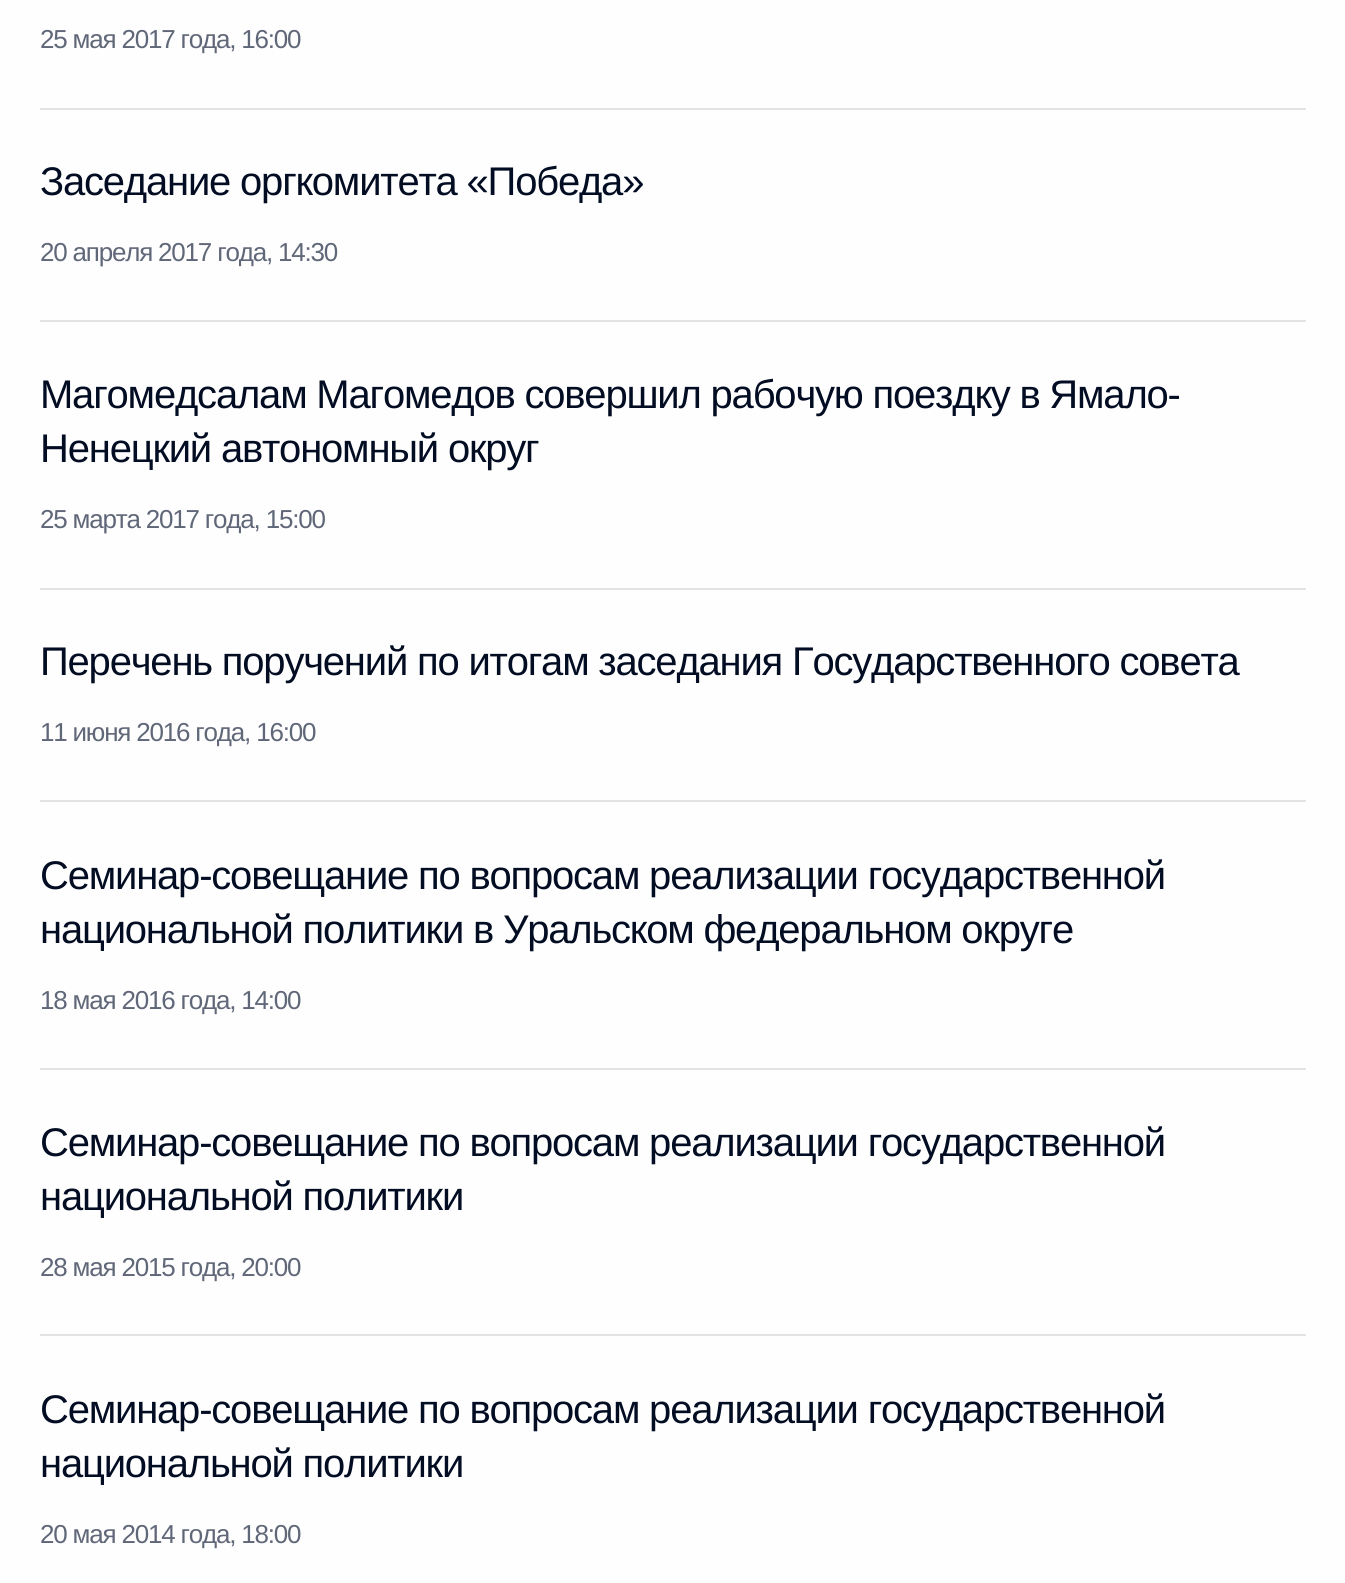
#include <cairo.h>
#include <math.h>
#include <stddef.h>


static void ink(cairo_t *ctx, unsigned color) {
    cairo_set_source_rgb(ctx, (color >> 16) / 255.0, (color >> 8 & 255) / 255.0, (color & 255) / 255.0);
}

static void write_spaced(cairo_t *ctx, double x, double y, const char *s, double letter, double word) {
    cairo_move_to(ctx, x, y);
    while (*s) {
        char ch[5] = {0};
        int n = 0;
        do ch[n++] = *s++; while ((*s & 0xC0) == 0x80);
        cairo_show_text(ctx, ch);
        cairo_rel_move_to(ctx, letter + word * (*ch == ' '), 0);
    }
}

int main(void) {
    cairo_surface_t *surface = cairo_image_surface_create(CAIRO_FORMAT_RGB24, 1345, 1583);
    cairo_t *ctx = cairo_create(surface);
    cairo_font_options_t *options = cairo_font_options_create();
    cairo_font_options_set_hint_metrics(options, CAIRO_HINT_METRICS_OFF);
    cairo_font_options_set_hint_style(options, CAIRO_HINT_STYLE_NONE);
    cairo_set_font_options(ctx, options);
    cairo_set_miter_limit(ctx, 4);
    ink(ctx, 0xFEFEFE);
    cairo_paint(ctx);
    ink(ctx, 0xE2E3E4);
    cairo_rectangle(ctx, 40, 108, 1266, 2);
    cairo_fill(ctx);
    cairo_select_font_face(ctx, "Liberation Sans", CAIRO_FONT_SLANT_NORMAL, CAIRO_FONT_WEIGHT_NORMAL);
    cairo_set_font_size(ctx, 26);
    ink(ctx, 0x606778);
    write_spaced(ctx, 40, 48, "25 мая 2017 года, 16:00", -1.2, 0);
    ink(ctx, 0xE2E3E4);
    cairo_rectangle(ctx, 40, 320, 1266, 2);
    cairo_fill(ctx);
    cairo_set_font_size(ctx, 40);
    ink(ctx, 0x020C22);
    write_spaced(ctx, 40, 195, "Заседание оргкомитета «Победа»", -1.2, 0);
    cairo_set_font_size(ctx, 26);
    ink(ctx, 0x606778);
    write_spaced(ctx, 40, 261, "20 апреля 2017 года, 14:30", -1.2, 0);
    ink(ctx, 0xE2E3E4);
    cairo_rectangle(ctx, 40, 588, 1266, 2);
    cairo_fill(ctx);
    cairo_set_font_size(ctx, 40);
    ink(ctx, 0x020C22);
    write_spaced(ctx, 40, 408, "Магомедсалам Магомедов совершил рабочую поездку в Ямало-", -1.2, 0);
    write_spaced(ctx, 40, 462, "Ненецкий автономный округ", -1.2, 0);
    cairo_set_font_size(ctx, 26);
    ink(ctx, 0x606778);
    write_spaced(ctx, 40, 528, "25 марта 2017 года, 15:00", -1.2, 0);
    ink(ctx, 0xE2E3E4);
    cairo_rectangle(ctx, 40, 800, 1266, 2);
    cairo_fill(ctx);
    cairo_set_font_size(ctx, 40);
    ink(ctx, 0x020C22);
    write_spaced(ctx, 40, 675, "Перечень поручений по итогам заседания Государственного совета", -1.2, 0);
    cairo_set_font_size(ctx, 26);
    ink(ctx, 0x606778);
    write_spaced(ctx, 40, 741, "11 июня 2016 года, 16:00", -1.2, 0);
    ink(ctx, 0xE2E3E4);
    cairo_rectangle(ctx, 40, 1068, 1266, 2);
    cairo_fill(ctx);
    cairo_set_font_size(ctx, 40);
    ink(ctx, 0x020C22);
    write_spaced(ctx, 40, 889, "Семинар-совещание по вопросам реализации государственной", -1.2, 0);
    write_spaced(ctx, 40, 943, "национальной политики в Уральском федеральном округе", -1.2, 0);
    cairo_set_font_size(ctx, 26);
    ink(ctx, 0x606778);
    write_spaced(ctx, 40, 1009, "18 мая 2016 года, 14:00", -1.2, 0);
    ink(ctx, 0xE2E3E4);
    cairo_rectangle(ctx, 40, 1334, 1266, 2);
    cairo_fill(ctx);
    cairo_set_font_size(ctx, 40);
    ink(ctx, 0x020C22);
    write_spaced(ctx, 40, 1156, "Семинар-совещание по вопросам реализации государственной", -1.2, 0);
    write_spaced(ctx, 40, 1210, "национальной политики", -1.2, 0);
    cairo_set_font_size(ctx, 26);
    ink(ctx, 0x606778);
    write_spaced(ctx, 40, 1276, "28 мая 2015 года, 20:00", -1.2, 0);
    cairo_set_font_size(ctx, 40);
    ink(ctx, 0x020C22);
    write_spaced(ctx, 40, 1423, "Семинар-совещание по вопросам реализации государственной", -1.2, 0);
    write_spaced(ctx, 40, 1477, "национальной политики", -1.2, 0);
    cairo_set_font_size(ctx, 26);
    ink(ctx, 0x606778);
    write_spaced(ctx, 40, 1543, "20 мая 2014 года, 18:00", -1.2, 0);
    cairo_surface_write_to_png(surface, "image.png");
    cairo_font_options_destroy(options);
    cairo_destroy(ctx);
    cairo_surface_destroy(surface);
    return 0;
}
